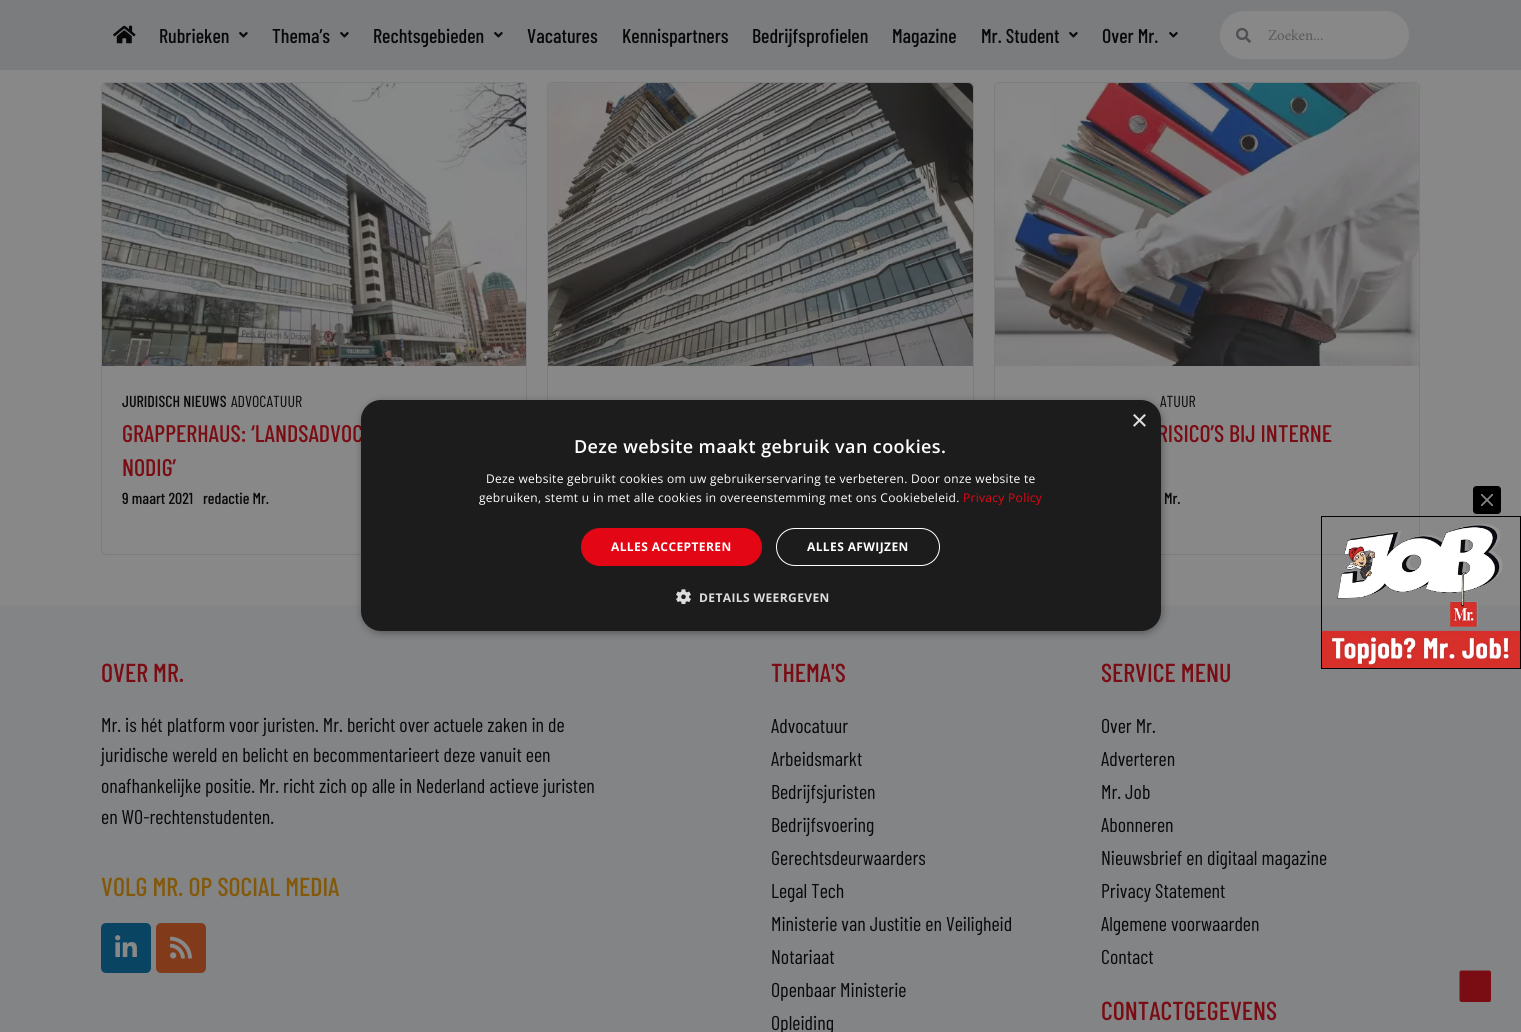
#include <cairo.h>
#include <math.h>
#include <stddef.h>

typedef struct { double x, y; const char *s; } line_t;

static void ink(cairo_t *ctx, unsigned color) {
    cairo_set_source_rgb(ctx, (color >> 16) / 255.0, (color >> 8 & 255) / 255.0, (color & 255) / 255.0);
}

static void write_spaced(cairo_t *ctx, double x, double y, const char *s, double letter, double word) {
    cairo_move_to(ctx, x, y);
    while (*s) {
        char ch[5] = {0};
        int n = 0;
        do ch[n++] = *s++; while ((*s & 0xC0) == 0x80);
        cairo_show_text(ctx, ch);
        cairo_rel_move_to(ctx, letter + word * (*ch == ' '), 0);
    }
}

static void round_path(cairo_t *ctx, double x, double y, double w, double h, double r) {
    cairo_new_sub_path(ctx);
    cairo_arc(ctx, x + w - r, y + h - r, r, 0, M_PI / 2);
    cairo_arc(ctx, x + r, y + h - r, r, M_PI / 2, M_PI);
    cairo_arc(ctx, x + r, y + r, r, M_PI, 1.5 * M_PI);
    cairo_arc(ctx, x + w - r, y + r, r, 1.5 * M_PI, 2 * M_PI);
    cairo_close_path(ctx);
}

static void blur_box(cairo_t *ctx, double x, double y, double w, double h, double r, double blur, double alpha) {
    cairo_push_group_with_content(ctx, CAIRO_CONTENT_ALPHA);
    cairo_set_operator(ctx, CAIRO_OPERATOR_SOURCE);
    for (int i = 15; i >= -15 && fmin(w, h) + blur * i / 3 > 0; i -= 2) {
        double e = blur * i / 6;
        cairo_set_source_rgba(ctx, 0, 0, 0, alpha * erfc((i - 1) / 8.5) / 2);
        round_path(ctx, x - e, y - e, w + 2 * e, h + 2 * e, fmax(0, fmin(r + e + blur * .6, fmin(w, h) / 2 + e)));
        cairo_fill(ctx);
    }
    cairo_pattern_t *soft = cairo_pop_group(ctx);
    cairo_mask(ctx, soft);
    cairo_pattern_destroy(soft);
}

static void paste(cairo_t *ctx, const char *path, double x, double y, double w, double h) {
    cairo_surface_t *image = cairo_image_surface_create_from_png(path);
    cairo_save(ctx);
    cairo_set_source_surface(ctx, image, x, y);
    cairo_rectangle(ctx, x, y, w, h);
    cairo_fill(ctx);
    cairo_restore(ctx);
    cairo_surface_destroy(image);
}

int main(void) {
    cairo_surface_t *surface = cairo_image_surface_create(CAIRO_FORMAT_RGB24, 1521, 1032);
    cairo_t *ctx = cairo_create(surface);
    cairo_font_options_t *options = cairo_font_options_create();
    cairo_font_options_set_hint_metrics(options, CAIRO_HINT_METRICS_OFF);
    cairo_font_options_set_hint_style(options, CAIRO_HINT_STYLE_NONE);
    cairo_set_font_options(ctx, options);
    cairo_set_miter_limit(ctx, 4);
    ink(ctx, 0x888888);
    cairo_paint(ctx);
    ink(ctx, 0x7A7C7E);
    cairo_rectangle(ctx, 0, 0, 1521, 70);
    cairo_fill(ctx);
    paste(ctx, "media/1.png", 113, 25, 23, 19);
    cairo_select_font_face(ctx, "Barlow Condensed Medium", CAIRO_FONT_SLANT_NORMAL, CAIRO_FONT_WEIGHT_NORMAL);
    cairo_set_font_size(ctx, 20);
    ink(ctx, 0x090909);
    cairo_move_to(ctx, 159, 43);
    cairo_show_text(ctx, "Rubrieken");
    paste(ctx, "media/2.png", 239, 32, 9, 6);
    cairo_move_to(ctx, 272, 43);
    cairo_show_text(ctx, "Thema’s");
    paste(ctx, "media/2.png", 340, 32, 9, 6);
    cairo_move_to(ctx, 373, 43);
    cairo_show_text(ctx, "Rechtsgebieden");
    paste(ctx, "media/2.png", 494, 32, 9, 6);
    {
        static const line_t items[] = {
            {527, 43, "Vacatures"},
            {622, 43, "Kennispartners"},
            {752, 43, "Bedrijfsprofielen"},
            {892, 43, "Magazine"},
            {981, 43, "Mr. Student"},
        };
        for (size_t i = 0; i < sizeof items / sizeof *items; i++) {
            cairo_move_to(ctx, items[i].x, items[i].y);
            cairo_show_text(ctx, items[i].s);
        }
    }
    paste(ctx, "media/2.png", 1069, 32, 9, 6);
    cairo_move_to(ctx, 1102, 43);
    cairo_show_text(ctx, "Over Mr.");
    paste(ctx, "media/2.png", 1169, 32, 9, 6);
    ink(ctx, 0x888888);
    round_path(ctx, 1219.5, 10.5, 190, 49, 24.5);
    cairo_fill_preserve(ctx);
    ink(ctx, 0x7A7C7E);
    cairo_set_line_width(ctx, 1);
    cairo_stroke(ctx);
    paste(ctx, "media/3.png", 1236, 27, 15, 16);
    cairo_select_font_face(ctx, "Minion", CAIRO_FONT_SLANT_NORMAL, CAIRO_FONT_WEIGHT_NORMAL);
    cairo_set_font_size(ctx, 15);
    ink(ctx, 0x5A5A5A);
    cairo_move_to(ctx, 1268, 40);
    cairo_show_text(ctx, "Zoeken...");
    round_path(ctx, 101.5, 82.5, 425, 472, 4.5);
    ink(ctx, 0x7A7C7E);
    cairo_stroke(ctx);
    paste(ctx, "media/4.png", 102, 83, 424, 283);
    cairo_select_font_face(ctx, "Barlow Condensed Medium", CAIRO_FONT_SLANT_NORMAL, CAIRO_FONT_WEIGHT_NORMAL);
    cairo_set_font_size(ctx, 16);
    ink(ctx, 0x090909);
    cairo_move_to(ctx, 122, 407);
    cairo_show_text(ctx, "JURIDISCH NIEUWS");
    cairo_select_font_face(ctx, "Barlow Condensed", CAIRO_FONT_SLANT_NORMAL, CAIRO_FONT_WEIGHT_NORMAL);
    cairo_move_to(ctx, 231, 407);
    cairo_show_text(ctx, "ADVOCATUUR");
    cairo_select_font_face(ctx, "Barlow Condensed Medium", CAIRO_FONT_SLANT_NORMAL, CAIRO_FONT_WEIGHT_NORMAL);
    cairo_set_font_size(ctx, 24);
    ink(ctx, 0x7A0C13);
    cairo_move_to(ctx, 122, 442);
    cairo_show_text(ctx, "GRAPPERHAUS: ‘LANDSADVOC");
    cairo_move_to(ctx, 122, 476);
    cairo_show_text(ctx, "NODIG’");
    cairo_set_font_size(ctx, 16);
    ink(ctx, 0x090909);
    cairo_move_to(ctx, 122, 504);
    cairo_show_text(ctx, "9 maart 2021");
    cairo_move_to(ctx, 203, 504);
    cairo_show_text(ctx, "redactie Mr.");
    round_path(ctx, 547.5, 82.5, 426, 472, 4.5);
    ink(ctx, 0x7A7C7E);
    cairo_stroke(ctx);
    paste(ctx, "media/5.png", 548, 83, 425, 283);
    round_path(ctx, 994.5, 82.5, 425, 472, 4.5);
    cairo_stroke(ctx);
    paste(ctx, "media/6.png", 995, 83, 424, 283);
    cairo_select_font_face(ctx, "Barlow Condensed", CAIRO_FONT_SLANT_NORMAL, CAIRO_FONT_WEIGHT_NORMAL);
    ink(ctx, 0x090909);
    cairo_move_to(ctx, 1160, 407);
    cairo_show_text(ctx, "ATUUR");
    cairo_select_font_face(ctx, "Barlow Condensed Medium", CAIRO_FONT_SLANT_NORMAL, CAIRO_FONT_WEIGHT_NORMAL);
    cairo_set_font_size(ctx, 24);
    ink(ctx, 0x7A0C13);
    cairo_move_to(ctx, 1157, 442);
    cairo_show_text(ctx, "RISICO’S BIJ INTERNE");
    cairo_set_font_size(ctx, 16);
    ink(ctx, 0x090909);
    cairo_move_to(ctx, 1164, 504);
    cairo_show_text(ctx, "Mr.");
    ink(ctx, 0x828486);
    cairo_rectangle(ctx, 0, 605, 1521, 427);
    cairo_fill(ctx);
    cairo_set_font_size(ctx, 26);
    ink(ctx, 0x7A0C13);
    cairo_move_to(ctx, 101, 682);
    cairo_show_text(ctx, "OVER MR.");
    cairo_select_font_face(ctx, "Barlow Condensed", CAIRO_FONT_SLANT_NORMAL, CAIRO_FONT_WEIGHT_NORMAL);
    cairo_set_font_size(ctx, 20);
    ink(ctx, 0x090909);
    {
        static const line_t items[] = {
            {101, 732, "Mr. is hét platform voor juristen. Mr. bericht over actuele zaken in de"},
            {101, 762, "juridische wereld en belicht en becommentarieert deze vanuit een"},
            {101, 793, "onafhankelijke positie. Mr. richt zich op alle in Nederland actieve juristen"},
            {101, 824, "en WO-rechtenstudenten."},
        };
        for (size_t i = 0; i < sizeof items / sizeof *items; i++) {
            cairo_move_to(ctx, items[i].x, items[i].y);
            cairo_show_text(ctx, items[i].s);
        }
    }
    cairo_select_font_face(ctx, "Barlow Condensed Medium", CAIRO_FONT_SLANT_NORMAL, CAIRO_FONT_WEIGHT_NORMAL);
    cairo_set_font_size(ctx, 26);
    ink(ctx, 0x835809);
    cairo_move_to(ctx, 101, 896);
    cairo_show_text(ctx, "VOLG MR. OP SOCIAL MEDIA");
    ink(ctx, 0x094463);
    round_path(ctx, 101, 923, 50, 50, 5);
    cairo_fill(ctx);
    paste(ctx, "media/7.png", 115, 935, 22, 22);
    ink(ctx, 0x823B1A);
    round_path(ctx, 156, 923, 50, 50, 5);
    cairo_fill(ctx);
    paste(ctx, "media/8.png", 170, 936, 22, 23);
    ink(ctx, 0x7A0C13);
    cairo_move_to(ctx, 771, 682);
    cairo_show_text(ctx, "THEMA'S");
    cairo_select_font_face(ctx, "Barlow Condensed", CAIRO_FONT_SLANT_NORMAL, CAIRO_FONT_WEIGHT_NORMAL);
    cairo_set_font_size(ctx, 20);
    ink(ctx, 0x090909);
    {
        static const line_t items[] = {
            {771, 733, "Advocatuur"},
            {771, 766, "Arbeidsmarkt"},
            {771, 799, "Bedrijfsjuristen"},
            {771, 832, "Bedrijfsvoering"},
            {771, 865, "Gerechtsdeurwaarders"},
            {771, 898, "Legal Tech"},
            {771, 931, "Ministerie van Justitie en Veiligheid"},
            {771, 964, "Notariaat"},
            {771, 997, "Openbaar Ministerie"},
            {771, 1030, "Opleiding"},
        };
        for (size_t i = 0; i < sizeof items / sizeof *items; i++) {
            cairo_move_to(ctx, items[i].x, items[i].y);
            cairo_show_text(ctx, items[i].s);
        }
    }
    cairo_select_font_face(ctx, "Barlow Condensed Medium", CAIRO_FONT_SLANT_NORMAL, CAIRO_FONT_WEIGHT_NORMAL);
    cairo_set_font_size(ctx, 26);
    ink(ctx, 0x7A0C13);
    cairo_move_to(ctx, 1101, 682);
    cairo_show_text(ctx, "SERVICE MENU");
    cairo_select_font_face(ctx, "Barlow Condensed", CAIRO_FONT_SLANT_NORMAL, CAIRO_FONT_WEIGHT_NORMAL);
    cairo_set_font_size(ctx, 20);
    ink(ctx, 0x090909);
    {
        static const line_t items[] = {
            {1101, 733, "Over Mr."},
            {1101, 766, "Adverteren"},
            {1101, 799, "Mr. Job"},
            {1101, 832, "Abonneren"},
            {1101, 865, "Nieuwsbrief en digitaal magazine"},
            {1101, 898, "Privacy Statement"},
            {1101, 931, "Algemene voorwaarden"},
            {1101, 964, "Contact"},
        };
        for (size_t i = 0; i < sizeof items / sizeof *items; i++) {
            cairo_move_to(ctx, items[i].x, items[i].y);
            cairo_show_text(ctx, items[i].s);
        }
    }
    cairo_select_font_face(ctx, "Barlow Condensed Medium", CAIRO_FONT_SLANT_NORMAL, CAIRO_FONT_WEIGHT_NORMAL);
    cairo_set_font_size(ctx, 26);
    ink(ctx, 0x7A0C13);
    cairo_move_to(ctx, 1101, 1020);
    cairo_show_text(ctx, "CONTACTGEGEVENS");
    ink(ctx, 0x000000);
    blur_box(ctx, 362, 402, 800, 231, 20, 4, 0.35);
    ink(ctx, 0x1C1C1C);
    round_path(ctx, 361, 400, 800, 231, 20);
    cairo_fill(ctx);
    cairo_select_font_face(ctx, "Liberation Sans", CAIRO_FONT_SLANT_NORMAL, CAIRO_FONT_WEIGHT_NORMAL);
    cairo_set_font_size(ctx, 29);
    ink(ctx, 0xDDDDDD);
    cairo_move_to(ctx, 1131, 430);
    cairo_show_text(ctx, "×");
    cairo_select_font_face(ctx, "Open Sans SemiBold", CAIRO_FONT_SLANT_NORMAL, CAIRO_FONT_WEIGHT_NORMAL);
    cairo_set_font_size(ctx, 18);
    ink(ctx, 0xFFFFFF);
    write_spaced(ctx, 574, 453, "Deze website maakt gebruik van cookies.", 0.4, 0);
    cairo_select_font_face(ctx, "Open Sans", CAIRO_FONT_SLANT_NORMAL, CAIRO_FONT_WEIGHT_NORMAL);
    cairo_set_font_size(ctx, 12);
    write_spaced(ctx, 486, 483, "Deze website gebruikt cookies om uw gebruikerservaring te verbeteren. Door onze website te", 0.3, 0);
    write_spaced(ctx, 479, 502, "gebruiken, stemt u in met alle cookies in overeenstemming met ons Cookiebeleid.", 0.3, 0);
    ink(ctx, 0xE30614);
    write_spaced(ctx, 963, 502, "Privacy Policy", 0.3, 0);
    round_path(ctx, 581, 528, 181, 38, 19);
    cairo_fill(ctx);
    cairo_select_font_face(ctx, "Open Sans", CAIRO_FONT_SLANT_NORMAL, CAIRO_FONT_WEIGHT_BOLD);
    ink(ctx, 0xFFFFFF);
    write_spaced(ctx, 611, 551, "ALLES ACCEPTEREN", 0.4, 0);
    round_path(ctx, 776.5, 528.5, 163, 37, 18.5);
    cairo_stroke(ctx);
    write_spaced(ctx, 807, 551, "ALLES AFWIJZEN", 0.4, 0);
    paste(ctx, "media/9.png", 676, 589, 15, 15);
    ink(ctx, 0xDDDDDD);
    write_spaced(ctx, 699, 602, "DETAILS WEERGEVEN", 0.4, 0);
    paste(ctx, "media/10.png", 1473, 486, 28, 28);
    cairo_rectangle(ctx, 1321.5, 516.5, 199, 152);
    ink(ctx, 0x000000);
    cairo_stroke(ctx);
    paste(ctx, "media/11.png", 1322, 524, 198, 144);
    ink(ctx, 0x7A0C13);
    cairo_new_path(ctx);
    cairo_move_to(ctx, 1489, 1002);
    cairo_line_to(ctx, 1461.5, 1002);
    cairo_curve_to(ctx, 1460.5, 1002, 1459.5, 1001, 1459.5, 1000);
    cairo_line_to(ctx, 1459.5, 972.5);
    cairo_curve_to(ctx, 1459.5, 971.5, 1460.5, 970.5, 1461.5, 970.5);
    cairo_line_to(ctx, 1489, 970.5);
    cairo_curve_to(ctx, 1490, 970.5, 1491, 971.5, 1491, 972.5);
    cairo_line_to(ctx, 1491, 1000);
    cairo_curve_to(ctx, 1491, 1001, 1490, 1002, 1489, 1002);
    cairo_close_path(ctx);
    cairo_fill(ctx);
    cairo_surface_write_to_png(surface, "image.png");
    cairo_font_options_destroy(options);
    cairo_destroy(ctx);
    cairo_surface_destroy(surface);
    return 0;
}
